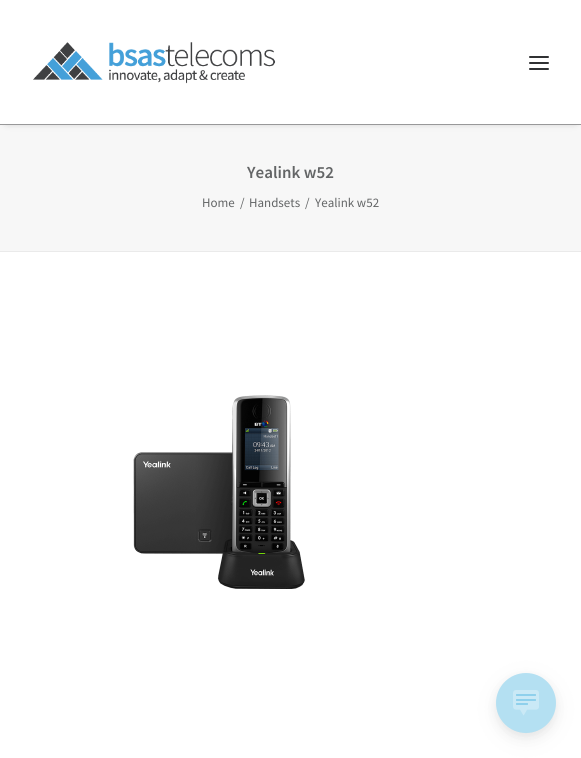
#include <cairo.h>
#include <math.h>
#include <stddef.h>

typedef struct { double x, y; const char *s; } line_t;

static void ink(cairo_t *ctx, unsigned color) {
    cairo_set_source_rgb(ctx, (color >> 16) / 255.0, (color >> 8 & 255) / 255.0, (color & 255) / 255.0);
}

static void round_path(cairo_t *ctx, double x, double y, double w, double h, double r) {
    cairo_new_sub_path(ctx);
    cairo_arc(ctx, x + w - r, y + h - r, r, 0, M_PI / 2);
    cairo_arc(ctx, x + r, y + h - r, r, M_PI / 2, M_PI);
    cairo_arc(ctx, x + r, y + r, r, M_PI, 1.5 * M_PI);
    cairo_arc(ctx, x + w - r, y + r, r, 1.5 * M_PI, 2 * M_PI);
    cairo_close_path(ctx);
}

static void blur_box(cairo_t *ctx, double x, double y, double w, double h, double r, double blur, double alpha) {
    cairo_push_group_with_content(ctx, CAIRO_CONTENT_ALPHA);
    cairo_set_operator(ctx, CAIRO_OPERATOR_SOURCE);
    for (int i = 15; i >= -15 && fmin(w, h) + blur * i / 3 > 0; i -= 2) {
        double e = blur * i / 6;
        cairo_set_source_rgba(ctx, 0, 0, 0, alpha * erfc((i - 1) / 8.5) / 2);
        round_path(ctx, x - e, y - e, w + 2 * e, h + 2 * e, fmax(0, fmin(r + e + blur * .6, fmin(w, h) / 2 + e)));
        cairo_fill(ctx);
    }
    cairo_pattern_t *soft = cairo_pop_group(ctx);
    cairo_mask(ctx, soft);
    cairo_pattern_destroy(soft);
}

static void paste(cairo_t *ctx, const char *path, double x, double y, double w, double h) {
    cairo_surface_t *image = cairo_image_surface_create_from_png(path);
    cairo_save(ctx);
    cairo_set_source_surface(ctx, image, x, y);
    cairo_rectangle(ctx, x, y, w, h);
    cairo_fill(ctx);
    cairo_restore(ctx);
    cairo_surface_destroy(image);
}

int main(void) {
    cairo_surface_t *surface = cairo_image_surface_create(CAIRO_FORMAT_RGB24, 581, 758);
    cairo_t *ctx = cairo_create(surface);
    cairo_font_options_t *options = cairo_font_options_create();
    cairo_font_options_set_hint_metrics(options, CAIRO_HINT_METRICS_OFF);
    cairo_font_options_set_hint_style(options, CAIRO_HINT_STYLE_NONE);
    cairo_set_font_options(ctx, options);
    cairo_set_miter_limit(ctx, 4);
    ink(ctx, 0xF7F7F7);
    cairo_paint(ctx);
    ink(ctx, 0x000000);
    blur_box(ctx, 7, 14, 568, 105, 0, 5, 0.6);
    ink(ctx, 0xFFFFFF);
    cairo_rectangle(ctx, 0, 0, 581, 124);
    cairo_fill(ctx);
    ink(ctx, 0x989899);
    cairo_rectangle(ctx, 0, 124, 581, 1);
    cairo_fill(ctx);
    paste(ctx, "media/1.png", 33, 42, 243, 42);
    ink(ctx, 0x303133);
    round_path(ctx, 529, 62, 20, 2, 1);
    cairo_fill(ctx);
    round_path(ctx, 529, 56, 20, 2, 1);
    cairo_fill(ctx);
    round_path(ctx, 529, 68, 20, 2, 1);
    cairo_fill(ctx);
    ink(ctx, 0xEAEAEA);
    cairo_rectangle(ctx, 0, 251, 581, 1);
    cairo_fill(ctx);
    cairo_select_font_face(ctx, "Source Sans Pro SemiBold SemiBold", CAIRO_FONT_SLANT_NORMAL, CAIRO_FONT_WEIGHT_NORMAL);
    cairo_set_font_size(ctx, 17);
    ink(ctx, 0x636566);
    cairo_move_to(ctx, 247, 178);
    cairo_show_text(ctx, "Yealink w52");
    cairo_select_font_face(ctx, "Source Sans Pro", CAIRO_FONT_SLANT_NORMAL, CAIRO_FONT_WEIGHT_NORMAL);
    cairo_set_font_size(ctx, 13);
    {
        static const line_t items[] = {
            {202, 207, "Home"},
            {240, 207, "/"},
            {249, 207, "Handsets"},
            {305, 207, "/"},
            {315, 207, "Yealink w52"},
        };
        for (size_t i = 0; i < sizeof items / sizeof *items; i++) {
            cairo_move_to(ctx, items[i].x, items[i].y);
            cairo_show_text(ctx, items[i].s);
        }
    }
    ink(ctx, 0xFFFFFF);
    cairo_rectangle(ctx, 0, 252, 581, 506);
    cairo_fill(ctx);
    paste(ctx, "media/2.png", 133, 395, 172, 194);
    ink(ctx, 0xB3B3B3);
    blur_box(ctx, 496, 679, 60, 60, 30, 10, 0.19);
    blur_box(ctx, 496, 677, 60, 60, 30, 4, 0.2);
    ink(ctx, 0xB4E0F2);
    cairo_arc(ctx, 526, 703, 30, 0, 2 * M_PI);
    cairo_fill(ctx);
    paste(ctx, "media/3.png", 513, 690, 26, 26);
    cairo_surface_write_to_png(surface, "image.png");
    cairo_font_options_destroy(options);
    cairo_destroy(ctx);
    cairo_surface_destroy(surface);
    return 0;
}
